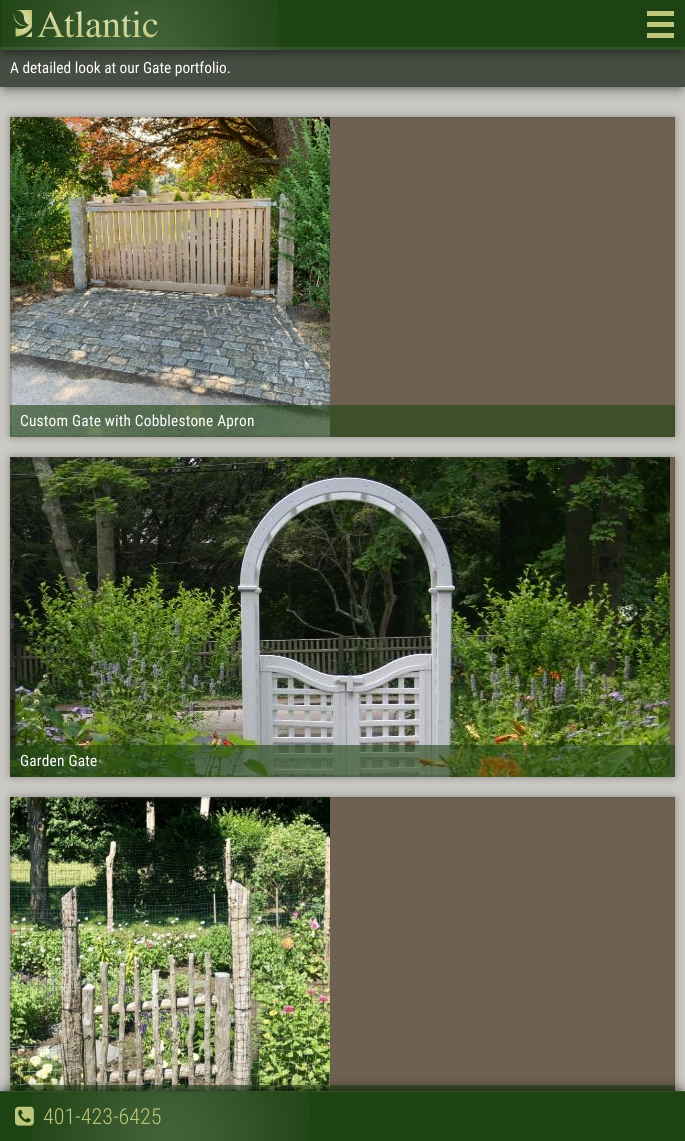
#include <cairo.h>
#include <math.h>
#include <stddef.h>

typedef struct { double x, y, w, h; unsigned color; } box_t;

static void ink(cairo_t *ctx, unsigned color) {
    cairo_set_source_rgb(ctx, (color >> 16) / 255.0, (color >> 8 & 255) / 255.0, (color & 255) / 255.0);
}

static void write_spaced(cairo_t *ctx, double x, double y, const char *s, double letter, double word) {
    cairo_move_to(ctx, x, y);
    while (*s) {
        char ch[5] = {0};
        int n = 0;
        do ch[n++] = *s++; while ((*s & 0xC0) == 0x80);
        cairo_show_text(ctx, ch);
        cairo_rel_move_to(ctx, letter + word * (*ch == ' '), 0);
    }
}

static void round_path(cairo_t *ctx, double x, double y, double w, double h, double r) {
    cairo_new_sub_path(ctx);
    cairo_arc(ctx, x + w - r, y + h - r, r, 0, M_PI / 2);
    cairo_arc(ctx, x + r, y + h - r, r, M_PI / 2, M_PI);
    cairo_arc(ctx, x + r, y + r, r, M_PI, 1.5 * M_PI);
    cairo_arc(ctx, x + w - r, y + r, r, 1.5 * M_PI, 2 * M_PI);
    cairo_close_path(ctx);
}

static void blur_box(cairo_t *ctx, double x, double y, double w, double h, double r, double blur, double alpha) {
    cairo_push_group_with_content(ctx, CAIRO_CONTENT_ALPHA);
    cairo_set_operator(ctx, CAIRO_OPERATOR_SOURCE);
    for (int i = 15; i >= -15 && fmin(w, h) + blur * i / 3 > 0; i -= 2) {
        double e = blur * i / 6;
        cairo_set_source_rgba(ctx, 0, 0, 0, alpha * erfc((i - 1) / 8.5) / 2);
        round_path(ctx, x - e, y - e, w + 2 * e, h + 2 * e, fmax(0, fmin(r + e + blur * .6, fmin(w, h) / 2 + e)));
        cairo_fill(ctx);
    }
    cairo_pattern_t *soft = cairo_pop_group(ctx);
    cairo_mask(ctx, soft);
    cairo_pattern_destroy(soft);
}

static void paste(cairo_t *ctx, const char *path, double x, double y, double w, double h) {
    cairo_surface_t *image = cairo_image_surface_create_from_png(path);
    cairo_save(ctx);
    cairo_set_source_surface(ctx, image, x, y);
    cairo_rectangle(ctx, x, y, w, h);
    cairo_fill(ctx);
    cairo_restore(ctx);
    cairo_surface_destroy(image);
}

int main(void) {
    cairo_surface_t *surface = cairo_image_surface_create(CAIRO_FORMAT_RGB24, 685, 1141);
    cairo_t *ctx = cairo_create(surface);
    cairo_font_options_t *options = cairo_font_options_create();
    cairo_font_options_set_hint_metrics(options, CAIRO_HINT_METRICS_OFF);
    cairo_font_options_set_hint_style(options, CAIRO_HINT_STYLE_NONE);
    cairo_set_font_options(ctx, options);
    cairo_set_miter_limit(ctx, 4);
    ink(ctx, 0xCBC9C4);
    cairo_paint(ctx);
    ink(ctx, 0x000000);
    blur_box(ctx, 5, 58, 675, 27, 0, 7.5, 0.9);
    ink(ctx, 0x474D42);
    cairo_rectangle(ctx, 0, 50, 685, 37);
    cairo_fill(ctx);
    ink(ctx, 0x000000);
    blur_box(ctx, 5, 8, 675, 40, 0, 7.5, 0.9);
    ink(ctx, 0x1E4313);
    cairo_rectangle(ctx, 0, 0, 685, 47);
    cairo_fill(ctx);
    ink(ctx, 0x325327);
    cairo_rectangle(ctx, 0, 47, 685, 3);
    cairo_fill(ctx);
    paste(ctx, "media/1.png", 2, 0, 277, 50);
    paste(ctx, "media/2.png", 13, 10, 145, 28);
    {
        static const box_t items[] = {
            {647, 11, 27, 5, 0xBEC77A},
            {647, 22, 27, 5, 0xBEC77A},
            {647, 33, 27, 5, 0xBEC77A},
        };
        for (size_t i = 0; i < sizeof items / sizeof *items; i++) {
            ink(ctx, items[i].color);
            cairo_rectangle(ctx, items[i].x, items[i].y, items[i].w, items[i].h);
            cairo_fill(ctx);
        }
    }
    cairo_select_font_face(ctx, "Roboto Condensed", CAIRO_FONT_SLANT_NORMAL, CAIRO_FONT_WEIGHT_NORMAL);
    cairo_set_font_size(ctx, 15.4);
    ink(ctx, 0xFFFFFF);
    cairo_move_to(ctx, 10, 73);
    cairo_show_text(ctx, "A detailed look at our Gate portfolio.");
    ink(ctx, 0x000000);
    blur_box(ctx, 12, 119, 661, 316, 0, 5, 0.5);
    ink(ctx, 0x6E6151);
    cairo_rectangle(ctx, 330, 117, 345, 320);
    cairo_fill(ctx);
    paste(ctx, "media/3.png", 10, 117, 320, 320);
    cairo_rectangle(ctx, 11, 118, 663, 318);
    cairo_set_source_rgba(ctx, 0.341, 0.278, 0.204, 0.2);
    cairo_stroke(ctx);
    cairo_set_source_rgba(ctx, 0.118, 0.263, 0.075, 0.6);
    cairo_rectangle(ctx, 10, 405, 665, 32);
    cairo_fill(ctx);
    ink(ctx, 0xFFFFFF);
    write_spaced(ctx, 20, 426, "Custom Gate with Cobblestone Apron", 0.2, 0);
    ink(ctx, 0x000000);
    blur_box(ctx, 12, 459, 661, 316, 0, 5, 0.5);
    ink(ctx, 0x6E6151);
    cairo_rectangle(ctx, 670, 457, 5, 320);
    cairo_fill(ctx);
    paste(ctx, "media/4.png", 10, 457, 660, 320);
    cairo_rectangle(ctx, 11, 458, 663, 318);
    cairo_set_source_rgba(ctx, 0.341, 0.278, 0.204, 0.2);
    cairo_stroke(ctx);
    cairo_set_source_rgba(ctx, 0.118, 0.263, 0.075, 0.6);
    cairo_rectangle(ctx, 10, 745, 665, 32);
    cairo_fill(ctx);
    ink(ctx, 0xFFFFFF);
    write_spaced(ctx, 20, 766, "Garden Gate", 0.2, 0);
    ink(ctx, 0x000000);
    blur_box(ctx, 12, 799, 661, 316, 0, 5, 0.5);
    ink(ctx, 0x6E6151);
    cairo_rectangle(ctx, 330, 797, 345, 294);
    cairo_fill(ctx);
    paste(ctx, "media/5.png", 10, 797, 320, 294);
    cairo_rectangle(ctx, 11, 798, 663, 318);
    cairo_set_source_rgba(ctx, 0.341, 0.278, 0.204, 0.2);
    cairo_stroke(ctx);
    cairo_set_source_rgba(ctx, 0.118, 0.263, 0.075, 0.6);
    cairo_rectangle(ctx, 10, 1085, 665, 6);
    cairo_fill(ctx);
    ink(ctx, 0x000000);
    blur_box(ctx, 5, 1093, 675, 40, 0, 7.5, 0.9);
    ink(ctx, 0x1E4313);
    cairo_rectangle(ctx, 0, 1092, 685, 49);
    cairo_fill(ctx);
    paste(ctx, "media/6.png", 32, 1092, 277, 49);
    ink(ctx, 0x325327);
    cairo_rectangle(ctx, 0, 1091, 685, 1);
    cairo_fill(ctx);
    paste(ctx, "media/7.png", 15, 1106, 19, 20);
    cairo_select_font_face(ctx, "Roboto Condensed Light", CAIRO_FONT_SLANT_NORMAL, CAIRO_FONT_WEIGHT_NORMAL);
    cairo_set_font_size(ctx, 22);
    ink(ctx, 0xBEC77A);
    cairo_move_to(ctx, 43, 1124);
    cairo_show_text(ctx, "401-423-6425");
    cairo_surface_write_to_png(surface, "image.png");
    cairo_font_options_destroy(options);
    cairo_destroy(ctx);
    cairo_surface_destroy(surface);
    return 0;
}
